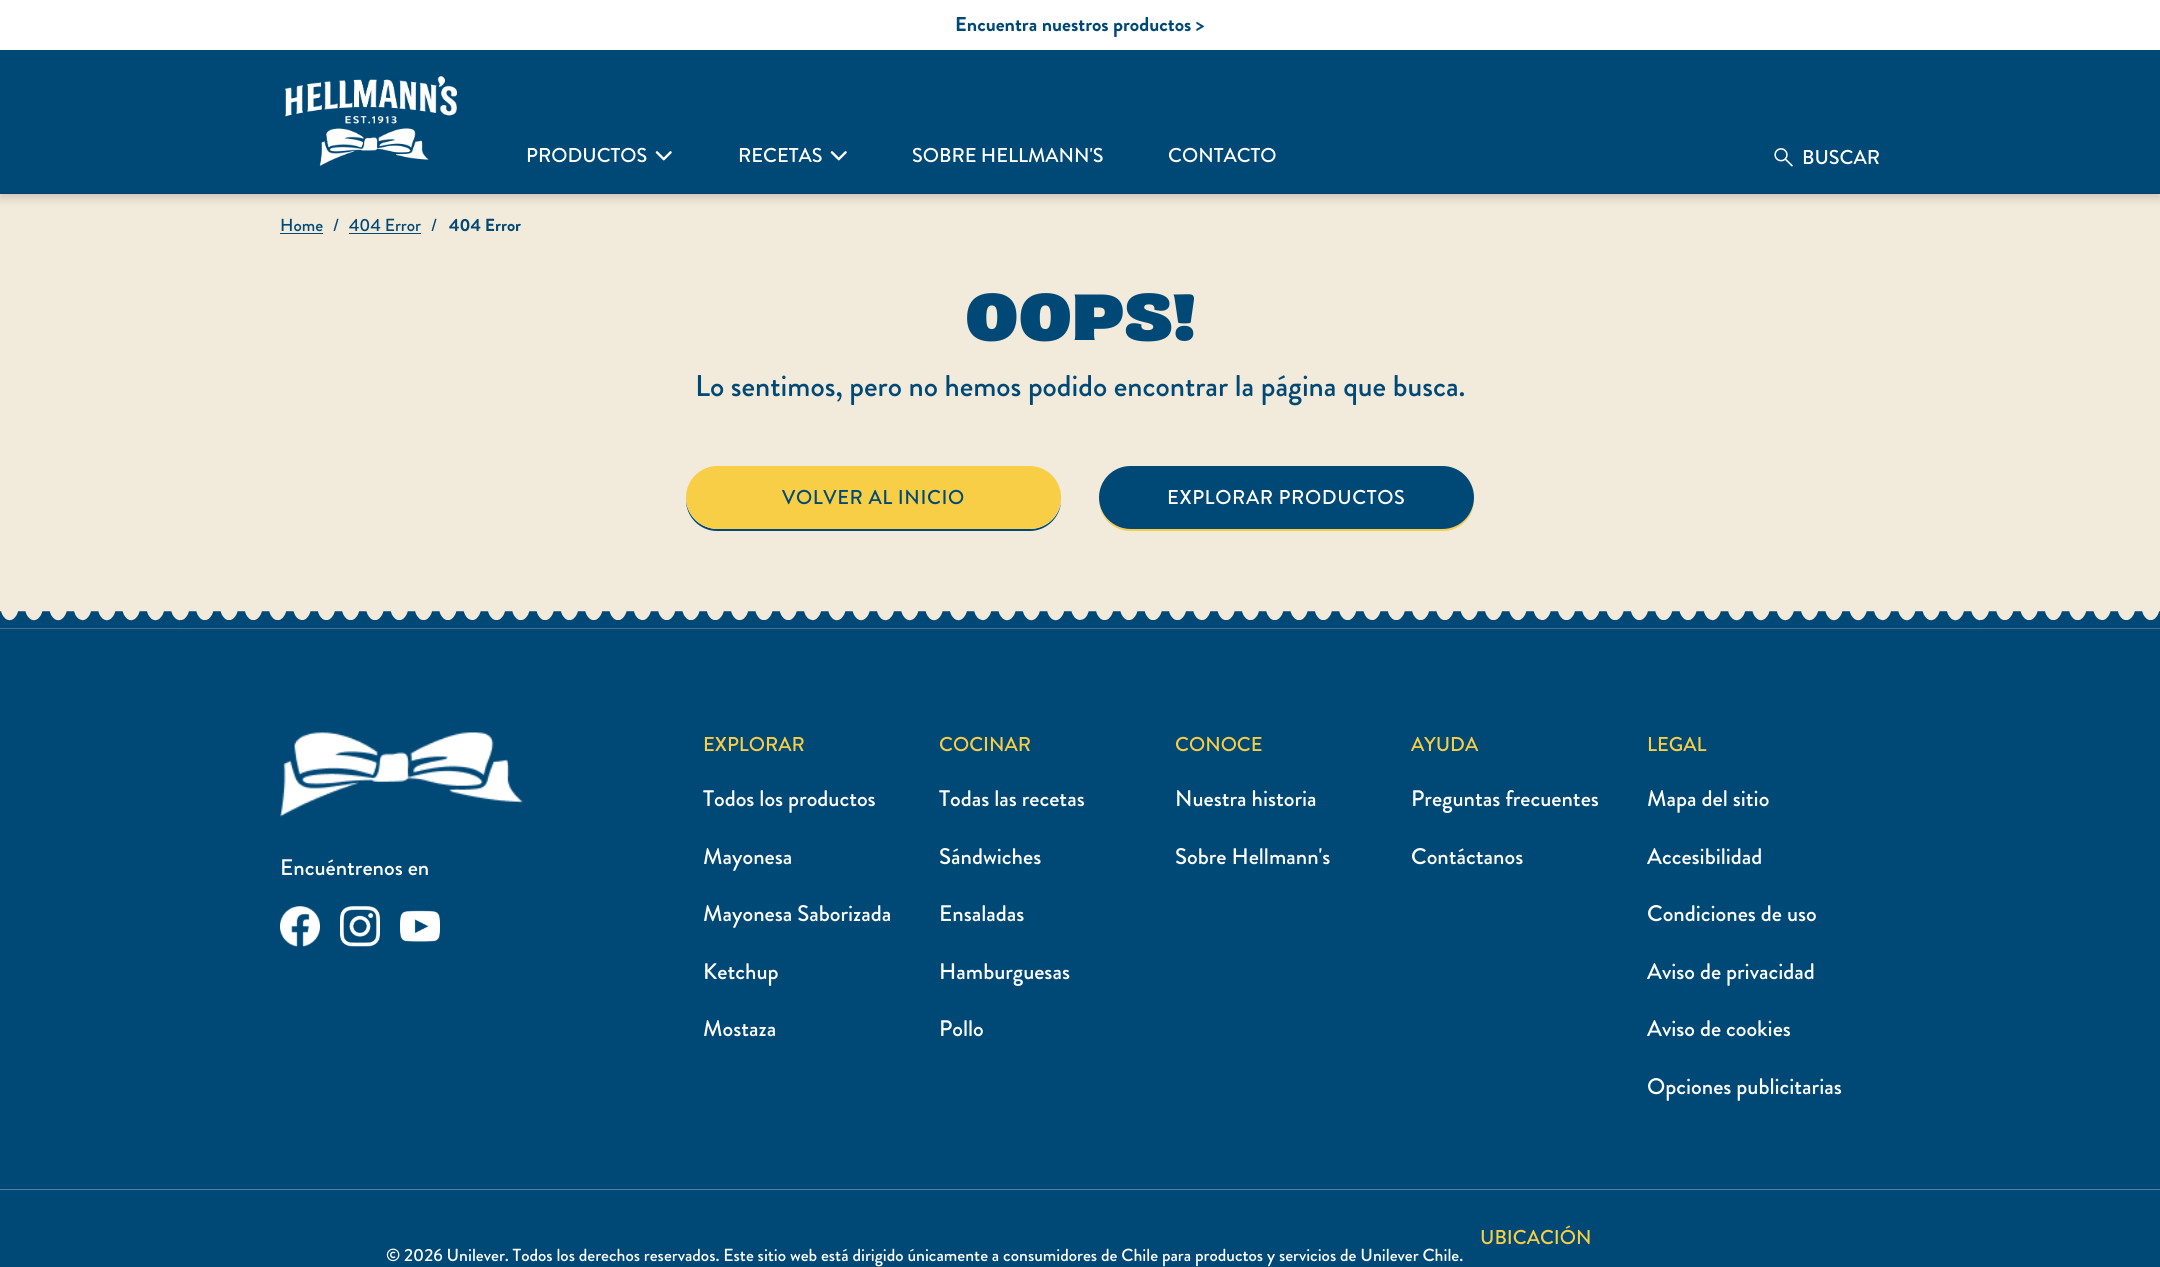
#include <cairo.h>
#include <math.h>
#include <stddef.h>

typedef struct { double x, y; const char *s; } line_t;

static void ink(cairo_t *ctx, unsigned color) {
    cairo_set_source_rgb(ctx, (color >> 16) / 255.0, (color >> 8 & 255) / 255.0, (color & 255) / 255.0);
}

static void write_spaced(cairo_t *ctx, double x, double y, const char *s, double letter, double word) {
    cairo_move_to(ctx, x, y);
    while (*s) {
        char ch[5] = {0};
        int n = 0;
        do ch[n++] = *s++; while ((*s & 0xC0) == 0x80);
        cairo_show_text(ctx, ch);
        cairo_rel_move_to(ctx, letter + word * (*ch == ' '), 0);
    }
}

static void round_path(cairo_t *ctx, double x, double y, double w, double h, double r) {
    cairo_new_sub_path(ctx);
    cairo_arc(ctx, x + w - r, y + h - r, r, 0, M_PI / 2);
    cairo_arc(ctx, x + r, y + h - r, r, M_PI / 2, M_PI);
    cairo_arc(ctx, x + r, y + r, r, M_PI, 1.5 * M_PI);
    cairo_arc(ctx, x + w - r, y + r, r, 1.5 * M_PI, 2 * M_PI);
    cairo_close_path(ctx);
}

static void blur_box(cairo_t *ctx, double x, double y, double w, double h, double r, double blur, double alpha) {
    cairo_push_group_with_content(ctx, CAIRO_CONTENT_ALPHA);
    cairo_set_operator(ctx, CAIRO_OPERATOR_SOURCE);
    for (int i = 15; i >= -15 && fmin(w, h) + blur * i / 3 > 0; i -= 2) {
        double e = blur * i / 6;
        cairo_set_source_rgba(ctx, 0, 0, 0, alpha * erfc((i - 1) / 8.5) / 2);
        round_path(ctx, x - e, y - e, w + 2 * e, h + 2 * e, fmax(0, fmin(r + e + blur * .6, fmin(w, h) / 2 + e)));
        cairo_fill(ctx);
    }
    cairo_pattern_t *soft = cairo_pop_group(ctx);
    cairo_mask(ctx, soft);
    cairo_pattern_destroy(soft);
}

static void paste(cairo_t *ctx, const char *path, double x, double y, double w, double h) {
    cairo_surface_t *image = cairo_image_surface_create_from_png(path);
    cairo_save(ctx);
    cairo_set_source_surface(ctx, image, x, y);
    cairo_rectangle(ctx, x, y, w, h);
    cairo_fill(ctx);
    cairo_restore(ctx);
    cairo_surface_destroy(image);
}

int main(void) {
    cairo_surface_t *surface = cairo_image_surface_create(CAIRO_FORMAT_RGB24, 2160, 1267);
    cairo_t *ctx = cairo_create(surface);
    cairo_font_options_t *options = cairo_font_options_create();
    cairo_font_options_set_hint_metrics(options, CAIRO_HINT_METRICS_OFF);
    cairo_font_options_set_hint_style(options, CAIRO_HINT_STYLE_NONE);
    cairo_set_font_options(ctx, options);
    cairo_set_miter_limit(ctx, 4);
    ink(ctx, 0x004976);
    cairo_paint(ctx);
    ink(ctx, 0xF2EADA);
    cairo_rectangle(ctx, 0, 194, 2160, 435);
    cairo_fill(ctx);
    ink(ctx, 0x000000);
    blur_box(ctx, 0, 5, 2160, 193, 0, 5, 0.15);
    ink(ctx, 0x004976);
    cairo_rectangle(ctx, 0, 50, 2160, 143);
    cairo_fill(ctx);
    ink(ctx, 0xFFFFFF);
    cairo_rectangle(ctx, 0, 0, 2160, 50);
    cairo_fill(ctx);
    cairo_select_font_face(ctx, "Brandon Grotesque", CAIRO_FONT_SLANT_NORMAL, CAIRO_FONT_WEIGHT_BOLD);
    cairo_set_font_size(ctx, 20);
    ink(ctx, 0x004976);
    cairo_move_to(ctx, 955, 31);
    cairo_show_text(ctx, "Encuentra nuestros productos >");
    paste(ctx, "media/1.png", 285, 76, 172, 90);
    cairo_select_font_face(ctx, "Brandon Grotesque Medium", CAIRO_FONT_SLANT_NORMAL, CAIRO_FONT_WEIGHT_NORMAL);
    ink(ctx, 0xFFFFFF);
    cairo_move_to(ctx, 526, 162);
    cairo_show_text(ctx, "PRODUCTOS");
    paste(ctx, "media/2.png", 655, 151, 17, 10);
    cairo_move_to(ctx, 738, 162);
    cairo_show_text(ctx, "RECETAS");
    paste(ctx, "media/2.png", 830, 151, 17, 10);
    cairo_move_to(ctx, 912, 162);
    cairo_show_text(ctx, "SOBRE HELLMANN'S");
    cairo_move_to(ctx, 1168, 162);
    cairo_show_text(ctx, "CONTACTO");
    paste(ctx, "media/3.png", 1774, 148, 19, 19);
    cairo_move_to(ctx, 1802, 164);
    cairo_show_text(ctx, "BUSCAR");
    cairo_set_font_size(ctx, 17.5);
    ink(ctx, 0x004976);
    cairo_move_to(ctx, 280, 231);
    cairo_show_text(ctx, "Home");
    cairo_rectangle(ctx, 280, 233, 43, 1);
    cairo_fill(ctx);
    cairo_move_to(ctx, 333, 231);
    cairo_show_text(ctx, "/");
    cairo_move_to(ctx, 349, 231);
    cairo_show_text(ctx, "404 Error");
    cairo_rectangle(ctx, 349, 233, 72, 1);
    cairo_fill(ctx);
    cairo_move_to(ctx, 431, 231);
    cairo_show_text(ctx, "/");
    cairo_select_font_face(ctx, "Brandon Grotesque", CAIRO_FONT_SLANT_NORMAL, CAIRO_FONT_WEIGHT_BOLD);
    cairo_move_to(ctx, 449, 231);
    cairo_show_text(ctx, "404 Error");
    cairo_select_font_face(ctx, "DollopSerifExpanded", CAIRO_FONT_SLANT_NORMAL, CAIRO_FONT_WEIGHT_NORMAL);
    cairo_set_font_size(ctx, 65);
    cairo_move_to(ctx, 965, 340);
    cairo_show_text(ctx, "OOPS!");
    cairo_select_font_face(ctx, "Brandon Grotesque Medium", CAIRO_FONT_SLANT_NORMAL, CAIRO_FONT_WEIGHT_NORMAL);
    cairo_set_font_size(ctx, 30);
    cairo_move_to(ctx, 695, 396);
    cairo_show_text(ctx, "Lo sentimos, pero no hemos podido encontrar la página que busca.");
    cairo_new_path(ctx);
    cairo_move_to(ctx, 686, 496);
    cairo_line_to(ctx, 686, 500);
    cairo_curve_to(ctx, 686, 517, 700, 531, 717, 531);
    cairo_line_to(ctx, 1030, 531);
    cairo_curve_to(ctx, 1046, 531, 1060, 518, 1061, 502);
    cairo_curve_to(ctx, 1059, 517, 1046, 529, 1030, 529);
    cairo_line_to(ctx, 718, 529);
    cairo_curve_to(ctx, 700, 529, 686, 515, 686, 498);
    cairo_close_path(ctx);
    cairo_fill(ctx);
    ink(ctx, 0xF7CE46);
    round_path(ctx, 686, 466, 375, 63, 31.5);
    cairo_fill(ctx);
    cairo_set_font_size(ctx, 20);
    ink(ctx, 0x004976);
    write_spaced(ctx, 782, 504, "VOLVER AL INICIO", 0.6, 0);
    ink(ctx, 0xF7CE46);
    cairo_new_path(ctx);
    cairo_move_to(ctx, 1099, 502);
    cairo_curve_to(ctx, 1100, 518, 1114, 531, 1130, 531);
    cairo_line_to(ctx, 1443, 531);
    cairo_curve_to(ctx, 1460, 531, 1474, 517, 1474, 500);
    cairo_line_to(ctx, 1474, 496);
    cairo_line_to(ctx, 1474, 498);
    cairo_curve_to(ctx, 1474, 515, 1460, 529, 1442, 529);
    cairo_line_to(ctx, 1130, 529);
    cairo_curve_to(ctx, 1114, 529, 1101, 517, 1099, 502);
    cairo_close_path(ctx);
    cairo_fill(ctx);
    ink(ctx, 0x004976);
    round_path(ctx, 1099, 466, 375, 63, 31.5);
    cairo_fill(ctx);
    ink(ctx, 0xFFFFFF);
    write_spaced(ctx, 1167, 504, "EXPLORAR PRODUCTOS", 0.6, 0);
    paste(ctx, "media/4.png", 0, 611, 2160, 18);
    paste(ctx, "media/5.png", 280, 732, 243, 85);
    cairo_set_font_size(ctx, 22.5);
    cairo_move_to(ctx, 280, 875);
    cairo_show_text(ctx, "Encuéntrenos en");
    paste(ctx, "media/6.png", 280, 906, 40, 41);
    paste(ctx, "media/7.png", 340, 906, 40, 41);
    paste(ctx, "media/8.png", 400, 910, 40, 32);
    cairo_set_font_size(ctx, 20);
    ink(ctx, 0xF7CE46);
    cairo_move_to(ctx, 703, 751);
    cairo_show_text(ctx, "EXPLORAR");
    cairo_set_font_size(ctx, 22.5);
    ink(ctx, 0xFFFFFF);
    {
        static const line_t items[] = {
            {703, 806, "Todos los productos"},
            {703, 864, "Mayonesa"},
            {703, 921, "Mayonesa Saborizada"},
            {703, 979, "Ketchup"},
            {703, 1036, "Mostaza"},
        };
        for (size_t i = 0; i < sizeof items / sizeof *items; i++) {
            cairo_move_to(ctx, items[i].x, items[i].y);
            cairo_show_text(ctx, items[i].s);
        }
    }
    cairo_set_font_size(ctx, 20);
    ink(ctx, 0xF7CE46);
    cairo_move_to(ctx, 939, 751);
    cairo_show_text(ctx, "COCINAR");
    cairo_set_font_size(ctx, 22.5);
    ink(ctx, 0xFFFFFF);
    {
        static const line_t items[] = {
            {939, 806, "Todas las recetas"},
            {939, 864, "Sándwiches"},
            {939, 921, "Ensaladas"},
            {939, 979, "Hamburguesas"},
            {939, 1036, "Pollo"},
        };
        for (size_t i = 0; i < sizeof items / sizeof *items; i++) {
            cairo_move_to(ctx, items[i].x, items[i].y);
            cairo_show_text(ctx, items[i].s);
        }
    }
    cairo_set_font_size(ctx, 20);
    ink(ctx, 0xF7CE46);
    cairo_move_to(ctx, 1175, 751);
    cairo_show_text(ctx, "CONOCE");
    cairo_set_font_size(ctx, 22.5);
    ink(ctx, 0xFFFFFF);
    cairo_move_to(ctx, 1175, 806);
    cairo_show_text(ctx, "Nuestra historia");
    cairo_move_to(ctx, 1175, 864);
    cairo_show_text(ctx, "Sobre Hellmann's");
    cairo_set_font_size(ctx, 20);
    ink(ctx, 0xF7CE46);
    cairo_move_to(ctx, 1411, 751);
    cairo_show_text(ctx, "AYUDA");
    cairo_set_font_size(ctx, 22.5);
    ink(ctx, 0xFFFFFF);
    cairo_move_to(ctx, 1411, 806);
    cairo_show_text(ctx, "Preguntas frecuentes");
    cairo_move_to(ctx, 1411, 864);
    cairo_show_text(ctx, "Contáctanos");
    cairo_set_font_size(ctx, 20);
    ink(ctx, 0xF7CE46);
    cairo_move_to(ctx, 1647, 751);
    cairo_show_text(ctx, "LEGAL");
    cairo_set_font_size(ctx, 22.5);
    ink(ctx, 0xFFFFFF);
    {
        static const line_t items[] = {
            {1647, 806, "Mapa del sitio"},
            {1647, 864, "Accesibilidad"},
            {1647, 921, "Condiciones de uso"},
            {1647, 979, "Aviso de privacidad"},
            {1647, 1036, "Aviso de cookies"},
            {1647, 1094, "Opciones publicitarias"},
        };
        for (size_t i = 0; i < sizeof items / sizeof *items; i++) {
            cairo_move_to(ctx, items[i].x, items[i].y);
            cairo_show_text(ctx, items[i].s);
        }
    }
    ink(ctx, 0x4D809F);
    cairo_rectangle(ctx, 0, 1189, 2160, 1);
    cairo_fill(ctx);
    cairo_set_font_size(ctx, 20);
    ink(ctx, 0xF7CE46);
    cairo_move_to(ctx, 1480, 1244);
    cairo_show_text(ctx, "UBICACIÓN");
    cairo_set_font_size(ctx, 17.5);
    ink(ctx, 0xFFFFFF);
    cairo_move_to(ctx, 386, 1261);
    cairo_show_text(ctx, "© 2026 Unilever. Todos los derechos reservados. Este sitio web está dirigido únicamente a consumidores de Chile para productos y servicios de Unilever Chile.");
    cairo_surface_write_to_png(surface, "image.png");
    cairo_font_options_destroy(options);
    cairo_destroy(ctx);
    cairo_surface_destroy(surface);
    return 0;
}
